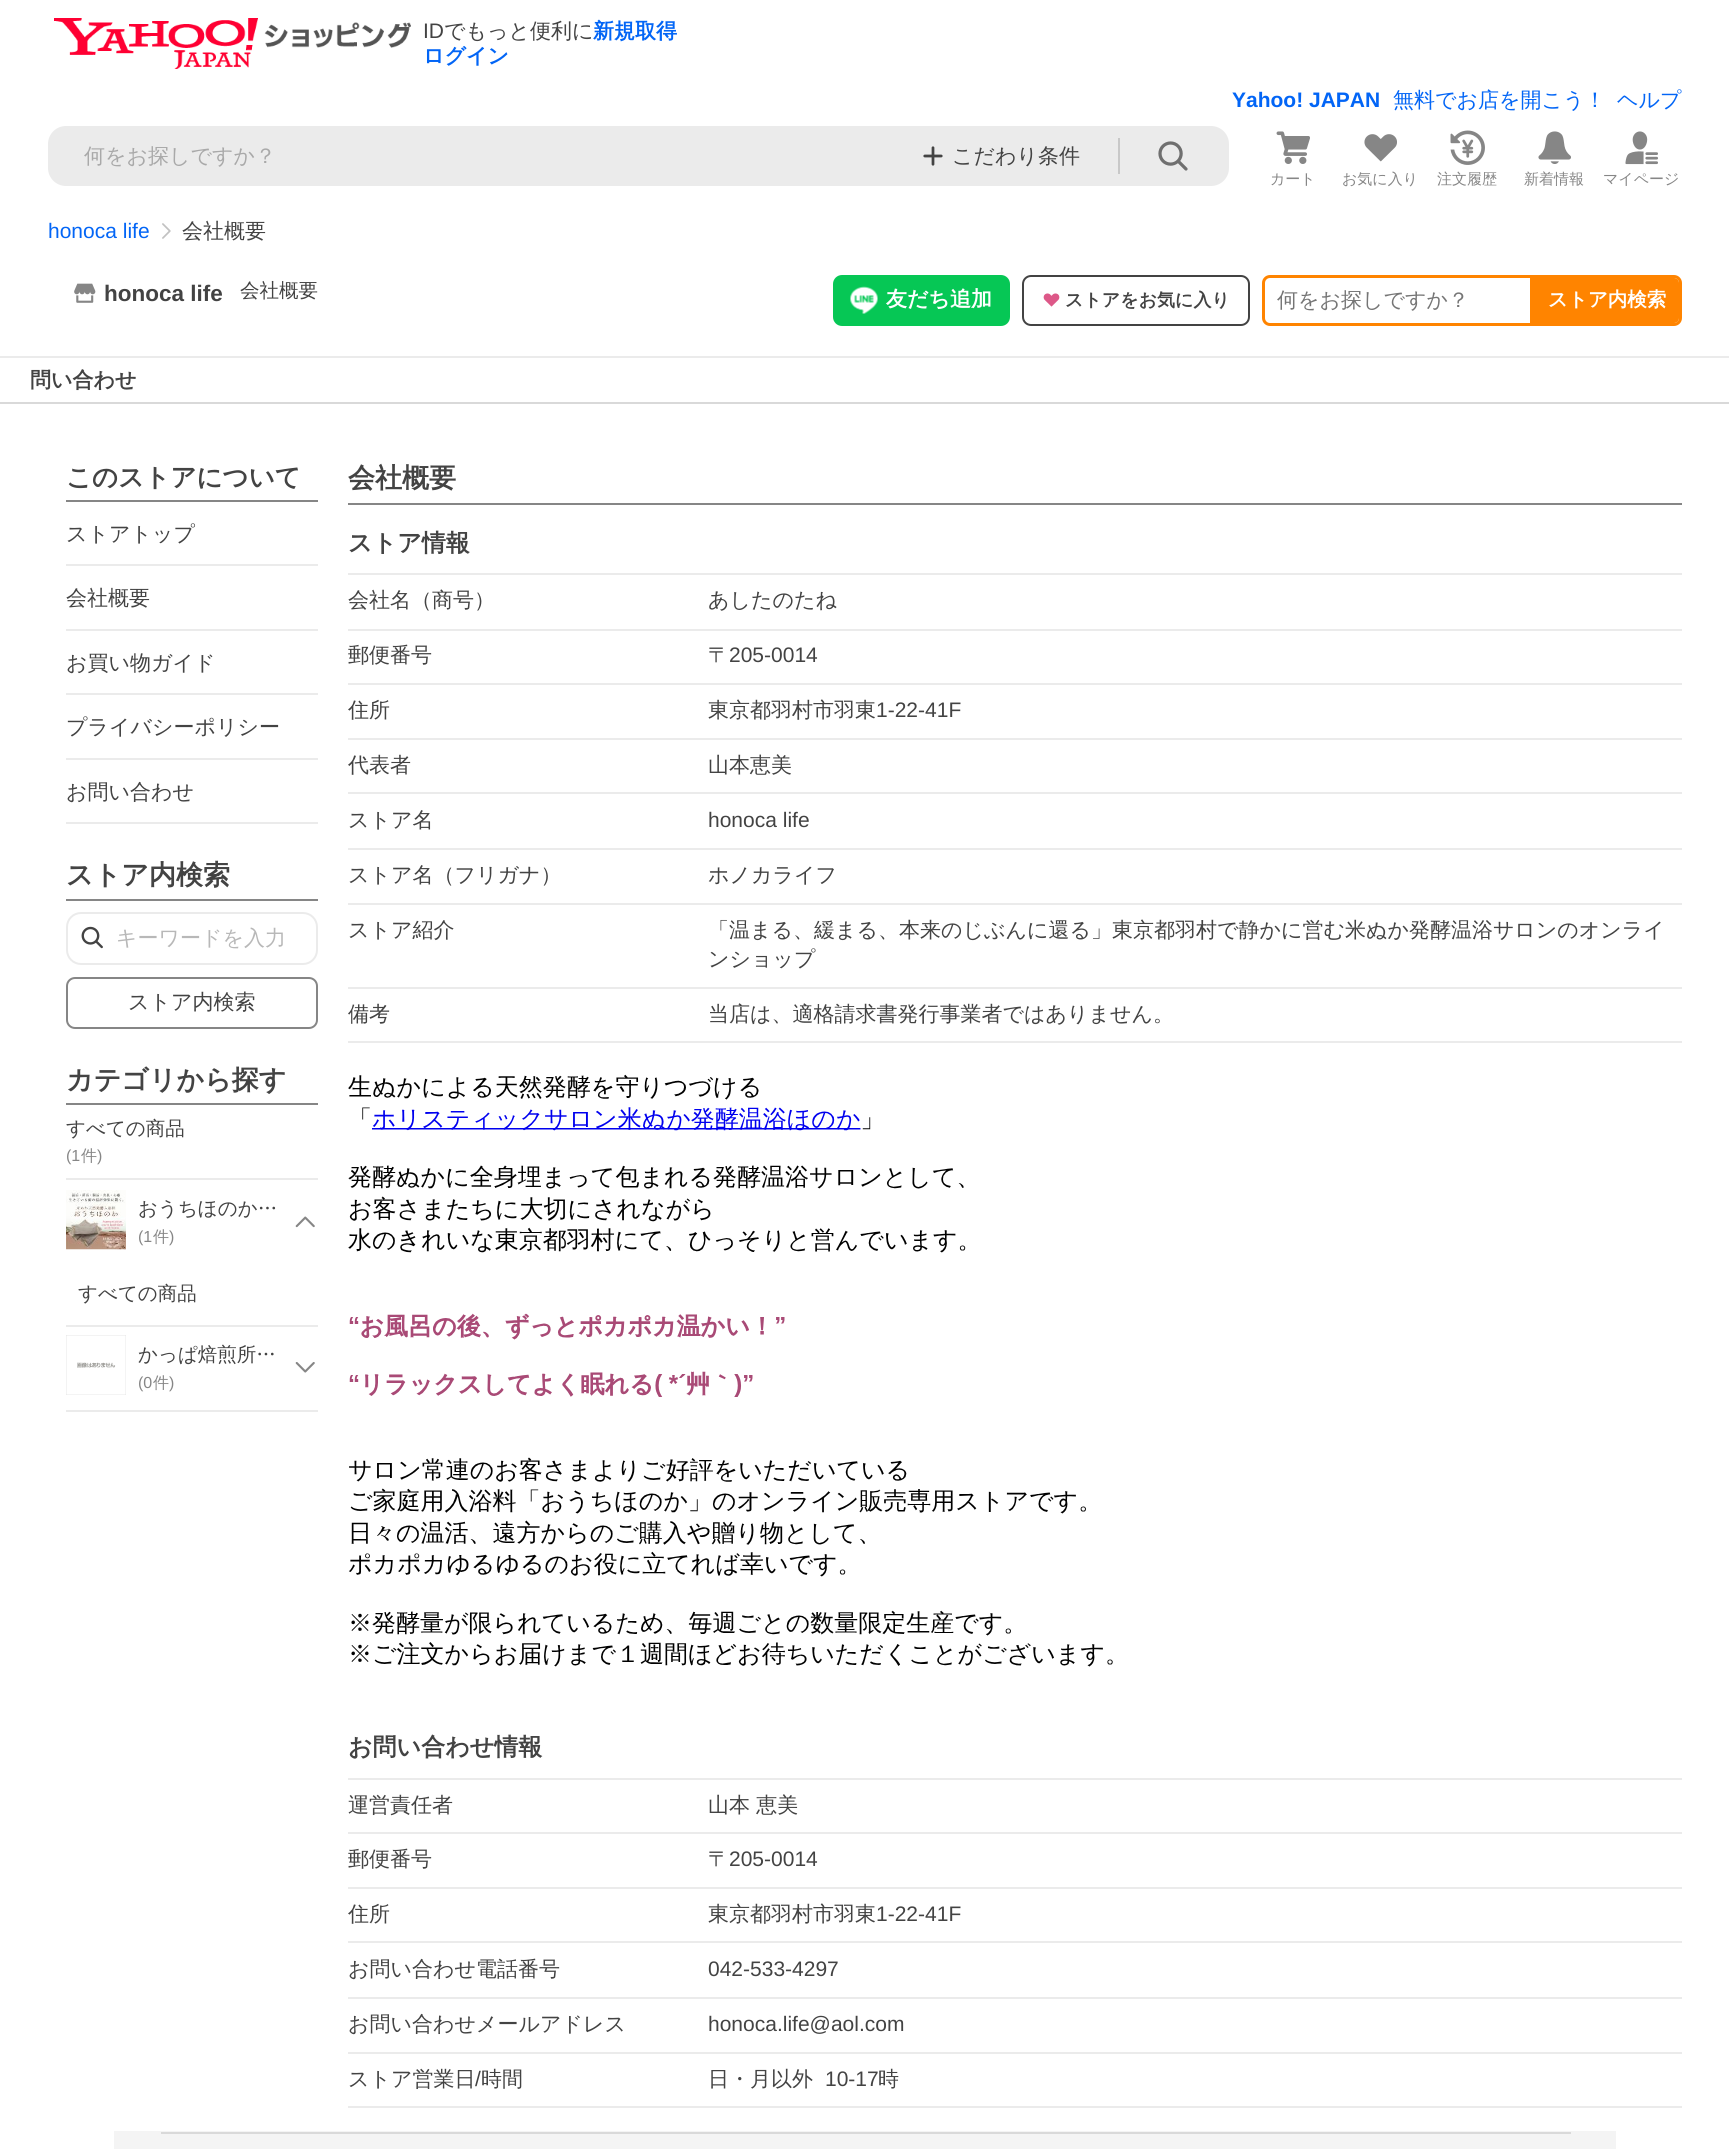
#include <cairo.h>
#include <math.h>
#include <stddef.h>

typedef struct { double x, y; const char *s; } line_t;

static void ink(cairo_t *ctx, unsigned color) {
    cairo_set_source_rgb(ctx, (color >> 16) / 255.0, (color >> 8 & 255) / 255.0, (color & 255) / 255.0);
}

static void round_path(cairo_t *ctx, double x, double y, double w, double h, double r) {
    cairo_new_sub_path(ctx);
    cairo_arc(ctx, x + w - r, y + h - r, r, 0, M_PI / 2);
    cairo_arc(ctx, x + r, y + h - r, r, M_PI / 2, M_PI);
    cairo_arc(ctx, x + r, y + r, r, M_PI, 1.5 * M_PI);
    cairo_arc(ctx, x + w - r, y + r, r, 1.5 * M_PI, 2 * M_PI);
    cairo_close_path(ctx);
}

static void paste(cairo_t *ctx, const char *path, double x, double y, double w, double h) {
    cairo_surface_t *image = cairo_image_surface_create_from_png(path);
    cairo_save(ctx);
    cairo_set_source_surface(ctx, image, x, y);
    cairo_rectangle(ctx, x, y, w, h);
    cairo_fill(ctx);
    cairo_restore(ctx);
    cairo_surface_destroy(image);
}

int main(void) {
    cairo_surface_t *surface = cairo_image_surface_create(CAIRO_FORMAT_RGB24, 1729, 2149);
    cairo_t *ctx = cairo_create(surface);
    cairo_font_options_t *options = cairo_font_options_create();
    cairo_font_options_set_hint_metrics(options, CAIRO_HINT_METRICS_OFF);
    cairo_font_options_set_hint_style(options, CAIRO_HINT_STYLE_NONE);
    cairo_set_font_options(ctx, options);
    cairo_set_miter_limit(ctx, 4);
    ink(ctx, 0xFFFFFF);
    cairo_paint(ctx);
    paste(ctx, "media/1.png", 54, 18, 357, 51);
    cairo_select_font_face(ctx, "Liberation Sans", CAIRO_FONT_SLANT_NORMAL, CAIRO_FONT_WEIGHT_NORMAL);
    cairo_set_font_size(ctx, 21);
    ink(ctx, 0x434343);
    cairo_move_to(ctx, 423, 38);
    cairo_show_text(ctx, "ID");
    cairo_select_font_face(ctx, "WenQuanYi Zen Hei Medium", CAIRO_FONT_SLANT_NORMAL, CAIRO_FONT_WEIGHT_NORMAL);
    cairo_move_to(ctx, 444, 38);
    cairo_show_text(ctx, "でもっと便利に");
    cairo_select_font_face(ctx, "WenQuanYi Zen Hei", CAIRO_FONT_SLANT_NORMAL, CAIRO_FONT_WEIGHT_BOLD);
    ink(ctx, 0x0265F6);
    cairo_move_to(ctx, 593, 38);
    cairo_show_text(ctx, "新規取得");
    cairo_move_to(ctx, 423, 63);
    cairo_show_text(ctx, "ログイン");
    cairo_select_font_face(ctx, "Liberation Sans", CAIRO_FONT_SLANT_NORMAL, CAIRO_FONT_WEIGHT_BOLD);
    cairo_move_to(ctx, 1232, 107);
    cairo_show_text(ctx, "Yahoo! JAPAN");
    cairo_select_font_face(ctx, "WenQuanYi Zen Hei Medium", CAIRO_FONT_SLANT_NORMAL, CAIRO_FONT_WEIGHT_NORMAL);
    cairo_move_to(ctx, 1393, 107);
    cairo_show_text(ctx, "無料でお店を開こう！");
    cairo_move_to(ctx, 1617, 107);
    cairo_show_text(ctx, "ヘルプ");
    ink(ctx, 0xEBEBEB);
    round_path(ctx, 48, 126, 1181, 60, 18);
    cairo_fill(ctx);
    ink(ctx, 0xA9A9A9);
    cairo_move_to(ctx, 84, 163);
    cairo_show_text(ctx, "何をお探しですか？");
    paste(ctx, "media/2.png", 923, 146, 20, 20);
    ink(ctx, 0x434343);
    cairo_move_to(ctx, 952, 163);
    cairo_show_text(ctx, "こだわり条件");
    ink(ctx, 0xC8C8C8);
    cairo_rectangle(ctx, 1118, 138, 2, 36);
    cairo_fill(ctx);
    paste(ctx, "media/3.png", 1158, 141, 30, 30);
    paste(ctx, "media/4.png", 1276, 131, 34, 33);
    cairo_set_font_size(ctx, 15);
    ink(ctx, 0x868686);
    cairo_move_to(ctx, 1270, 184);
    cairo_show_text(ctx, "カート");
    paste(ctx, "media/5.png", 1364, 134, 33, 28);
    cairo_move_to(ctx, 1342, 184);
    cairo_show_text(ctx, "お気に入り");
    paste(ctx, "media/6.png", 1450, 130, 35, 35);
    cairo_move_to(ctx, 1437, 184);
    cairo_show_text(ctx, "注文履歴");
    paste(ctx, "media/7.png", 1538, 131, 33, 33);
    cairo_move_to(ctx, 1524, 184);
    cairo_show_text(ctx, "新着情報");
    paste(ctx, "media/8.png", 1625, 131, 33, 34);
    cairo_move_to(ctx, 1603, 184);
    cairo_show_text(ctx, "マイページ");
    cairo_select_font_face(ctx, "Liberation Sans", CAIRO_FONT_SLANT_NORMAL, CAIRO_FONT_WEIGHT_NORMAL);
    cairo_set_font_size(ctx, 21);
    ink(ctx, 0x0265F6);
    cairo_move_to(ctx, 48, 238);
    cairo_show_text(ctx, "honoca life");
    paste(ctx, "media/9.png", 162, 223, 9, 16);
    cairo_select_font_face(ctx, "WenQuanYi Zen Hei Medium", CAIRO_FONT_SLANT_NORMAL, CAIRO_FONT_WEIGHT_NORMAL);
    ink(ctx, 0x434343);
    cairo_move_to(ctx, 182, 238);
    cairo_show_text(ctx, "会社概要");
    paste(ctx, "media/10.png", 74, 283, 22, 20);
    cairo_select_font_face(ctx, "Liberation Sans", CAIRO_FONT_SLANT_NORMAL, CAIRO_FONT_WEIGHT_BOLD);
    cairo_set_font_size(ctx, 22.5);
    cairo_move_to(ctx, 104, 301);
    cairo_show_text(ctx, "honoca life");
    cairo_select_font_face(ctx, "WenQuanYi Zen Hei Medium", CAIRO_FONT_SLANT_NORMAL, CAIRO_FONT_WEIGHT_NORMAL);
    cairo_set_font_size(ctx, 19.5);
    cairo_move_to(ctx, 240, 297);
    cairo_show_text(ctx, "会社概要");
    ink(ctx, 0x06C755);
    round_path(ctx, 833, 275, 177, 51, 9);
    cairo_fill(ctx);
    paste(ctx, "media/11.png", 850, 286, 28, 28);
    cairo_select_font_face(ctx, "WenQuanYi Zen Hei", CAIRO_FONT_SLANT_NORMAL, CAIRO_FONT_WEIGHT_BOLD);
    cairo_set_font_size(ctx, 21);
    ink(ctx, 0xFFFFFF);
    cairo_move_to(ctx, 886, 306);
    cairo_show_text(ctx, "友だち追加");
    round_path(ctx, 1023, 276, 226, 49, 8);
    ink(ctx, 0x434343);
    cairo_stroke(ctx);
    paste(ctx, "media/12.png", 1043, 293, 17, 14);
    cairo_set_font_size(ctx, 18);
    cairo_move_to(ctx, 1065, 306);
    cairo_show_text(ctx, "ストアをお気に入り");
    round_path(ctx, 1263.5, 276.5, 417, 48, 6.5);
    ink(ctx, 0xFF8400);
    cairo_set_line_width(ctx, 3);
    cairo_stroke(ctx);
    cairo_select_font_face(ctx, "WenQuanYi Zen Hei Medium", CAIRO_FONT_SLANT_NORMAL, CAIRO_FONT_WEIGHT_NORMAL);
    cairo_set_font_size(ctx, 21);
    ink(ctx, 0x757575);
    cairo_move_to(ctx, 1277, 307);
    cairo_show_text(ctx, "何をお探しですか？");
    ink(ctx, 0xFF8400);
    cairo_new_path(ctx);
    cairo_move_to(ctx, 1530, 278);
    cairo_line_to(ctx, 1674, 278);
    cairo_curve_to(ctx, 1677, 278, 1679, 280, 1679, 283);
    cairo_line_to(ctx, 1679, 318);
    cairo_curve_to(ctx, 1679, 321, 1677, 323, 1674, 323);
    cairo_line_to(ctx, 1530, 323);
    cairo_close_path(ctx);
    cairo_fill(ctx);
    cairo_select_font_face(ctx, "WenQuanYi Zen Hei", CAIRO_FONT_SLANT_NORMAL, CAIRO_FONT_WEIGHT_BOLD);
    cairo_set_font_size(ctx, 19.5);
    ink(ctx, 0xFFFFFF);
    cairo_move_to(ctx, 1548, 306);
    cairo_show_text(ctx, "ストア内検索");
    ink(ctx, 0xEBEBEB);
    cairo_rectangle(ctx, 0, 356, 1729, 2);
    cairo_fill(ctx);
    ink(ctx, 0xD9D9D9);
    cairo_rectangle(ctx, 0, 402, 1729, 2);
    cairo_fill(ctx);
    cairo_set_font_size(ctx, 21);
    ink(ctx, 0x434343);
    cairo_move_to(ctx, 30, 387);
    cairo_show_text(ctx, "問い合わせ");
    ink(ctx, 0x868686);
    cairo_rectangle(ctx, 66, 500, 252, 2);
    cairo_fill(ctx);
    cairo_set_font_size(ctx, 25.5);
    ink(ctx, 0x434343);
    cairo_move_to(ctx, 66, 486);
    cairo_show_text(ctx, "このストアについて");
    ink(ctx, 0xEBEBEB);
    cairo_rectangle(ctx, 66, 564, 252, 2);
    cairo_fill(ctx);
    cairo_select_font_face(ctx, "WenQuanYi Zen Hei Medium", CAIRO_FONT_SLANT_NORMAL, CAIRO_FONT_WEIGHT_NORMAL);
    cairo_set_font_size(ctx, 21);
    ink(ctx, 0x434343);
    cairo_move_to(ctx, 66, 541);
    cairo_show_text(ctx, "ストアトップ");
    ink(ctx, 0xEBEBEB);
    cairo_rectangle(ctx, 66, 629, 252, 2);
    cairo_fill(ctx);
    ink(ctx, 0x434343);
    cairo_move_to(ctx, 66, 605);
    cairo_show_text(ctx, "会社概要");
    ink(ctx, 0xEBEBEB);
    cairo_rectangle(ctx, 66, 693, 252, 2);
    cairo_fill(ctx);
    ink(ctx, 0x434343);
    cairo_move_to(ctx, 66, 670);
    cairo_show_text(ctx, "お買い物ガイド");
    ink(ctx, 0xEBEBEB);
    cairo_rectangle(ctx, 66, 758, 252, 2);
    cairo_fill(ctx);
    ink(ctx, 0x434343);
    cairo_move_to(ctx, 66, 734);
    cairo_show_text(ctx, "プライバシーポリシー");
    ink(ctx, 0xEBEBEB);
    cairo_rectangle(ctx, 66, 822, 252, 2);
    cairo_fill(ctx);
    ink(ctx, 0x434343);
    cairo_move_to(ctx, 66, 799);
    cairo_show_text(ctx, "お問い合わせ");
    ink(ctx, 0x868686);
    cairo_rectangle(ctx, 66, 899, 252, 2);
    cairo_fill(ctx);
    cairo_select_font_face(ctx, "WenQuanYi Zen Hei", CAIRO_FONT_SLANT_NORMAL, CAIRO_FONT_WEIGHT_BOLD);
    cairo_set_font_size(ctx, 27);
    ink(ctx, 0x434343);
    cairo_move_to(ctx, 66, 884);
    cairo_show_text(ctx, "ストア内検索");
    round_path(ctx, 67, 913, 250, 51, 14);
    ink(ctx, 0xEBEBEB);
    cairo_set_line_width(ctx, 2);
    cairo_stroke(ctx);
    paste(ctx, "media/13.png", 81, 926, 22, 23);
    cairo_select_font_face(ctx, "WenQuanYi Zen Hei Medium", CAIRO_FONT_SLANT_NORMAL, CAIRO_FONT_WEIGHT_NORMAL);
    cairo_set_font_size(ctx, 21);
    ink(ctx, 0xB8B8B8);
    cairo_move_to(ctx, 116, 945);
    cairo_show_text(ctx, "キーワードを入力");
    round_path(ctx, 67, 978, 250, 50, 8);
    ink(ctx, 0x868686);
    cairo_stroke(ctx);
    ink(ctx, 0x434343);
    cairo_move_to(ctx, 128, 1009);
    cairo_show_text(ctx, "ストア内検索");
    ink(ctx, 0x868686);
    cairo_rectangle(ctx, 66, 1103, 252, 2);
    cairo_fill(ctx);
    cairo_select_font_face(ctx, "WenQuanYi Zen Hei", CAIRO_FONT_SLANT_NORMAL, CAIRO_FONT_WEIGHT_BOLD);
    cairo_set_font_size(ctx, 27);
    ink(ctx, 0x434343);
    cairo_move_to(ctx, 66, 1089);
    cairo_show_text(ctx, "カテゴリから探す");
    ink(ctx, 0xEBEBEB);
    cairo_rectangle(ctx, 66, 1178, 252, 2);
    cairo_fill(ctx);
    cairo_select_font_face(ctx, "WenQuanYi Zen Hei Medium", CAIRO_FONT_SLANT_NORMAL, CAIRO_FONT_WEIGHT_NORMAL);
    cairo_set_font_size(ctx, 19.5);
    ink(ctx, 0x434343);
    cairo_move_to(ctx, 66, 1135);
    cairo_show_text(ctx, "すべての商品");
    cairo_select_font_face(ctx, "Liberation Sans", CAIRO_FONT_SLANT_NORMAL, CAIRO_FONT_WEIGHT_NORMAL);
    cairo_set_font_size(ctx, 16);
    ink(ctx, 0x868686);
    cairo_move_to(ctx, 66, 1161);
    cairo_show_text(ctx, "(1");
    cairo_select_font_face(ctx, "WenQuanYi Zen Hei Medium", CAIRO_FONT_SLANT_NORMAL, CAIRO_FONT_WEIGHT_NORMAL);
    cairo_move_to(ctx, 81, 1161);
    cairo_show_text(ctx, "件");
    cairo_select_font_face(ctx, "Liberation Sans", CAIRO_FONT_SLANT_NORMAL, CAIRO_FONT_WEIGHT_NORMAL);
    cairo_move_to(ctx, 97, 1161);
    cairo_show_text(ctx, ")");
    ink(ctx, 0xEBEBEB);
    cairo_rectangle(ctx, 66, 1325, 252, 2);
    cairo_fill(ctx);
    paste(ctx, "media/14.png", 66, 1190, 60, 60);
    cairo_select_font_face(ctx, "WenQuanYi Zen Hei Medium", CAIRO_FONT_SLANT_NORMAL, CAIRO_FONT_WEIGHT_NORMAL);
    cairo_set_font_size(ctx, 19.5);
    ink(ctx, 0x434343);
    cairo_move_to(ctx, 138, 1215);
    cairo_show_text(ctx, "おうちほのか…");
    cairo_select_font_face(ctx, "Liberation Sans", CAIRO_FONT_SLANT_NORMAL, CAIRO_FONT_WEIGHT_NORMAL);
    cairo_set_font_size(ctx, 16);
    ink(ctx, 0x868686);
    cairo_move_to(ctx, 138, 1242);
    cairo_show_text(ctx, "(1");
    cairo_select_font_face(ctx, "WenQuanYi Zen Hei Medium", CAIRO_FONT_SLANT_NORMAL, CAIRO_FONT_WEIGHT_NORMAL);
    cairo_move_to(ctx, 153, 1242);
    cairo_show_text(ctx, "件");
    cairo_select_font_face(ctx, "Liberation Sans", CAIRO_FONT_SLANT_NORMAL, CAIRO_FONT_WEIGHT_NORMAL);
    cairo_move_to(ctx, 169, 1242);
    cairo_show_text(ctx, ")");
    paste(ctx, "media/15.png", 295, 1216, 20, 12);
    cairo_select_font_face(ctx, "WenQuanYi Zen Hei Medium", CAIRO_FONT_SLANT_NORMAL, CAIRO_FONT_WEIGHT_NORMAL);
    cairo_set_font_size(ctx, 19.5);
    ink(ctx, 0x434343);
    cairo_move_to(ctx, 78, 1300);
    cairo_show_text(ctx, "すべての商品");
    ink(ctx, 0xEBEBEB);
    cairo_rectangle(ctx, 66, 1410, 252, 2);
    cairo_fill(ctx);
    paste(ctx, "media/16.png", 66, 1335, 60, 60);
    ink(ctx, 0x434343);
    cairo_move_to(ctx, 138, 1361);
    cairo_show_text(ctx, "かっぱ焙煎所…");
    cairo_select_font_face(ctx, "Liberation Sans", CAIRO_FONT_SLANT_NORMAL, CAIRO_FONT_WEIGHT_NORMAL);
    cairo_set_font_size(ctx, 16);
    ink(ctx, 0x868686);
    cairo_move_to(ctx, 138, 1388);
    cairo_show_text(ctx, "(0");
    cairo_select_font_face(ctx, "WenQuanYi Zen Hei Medium", CAIRO_FONT_SLANT_NORMAL, CAIRO_FONT_WEIGHT_NORMAL);
    cairo_move_to(ctx, 153, 1388);
    cairo_show_text(ctx, "件");
    cairo_select_font_face(ctx, "Liberation Sans", CAIRO_FONT_SLANT_NORMAL, CAIRO_FONT_WEIGHT_NORMAL);
    cairo_move_to(ctx, 169, 1388);
    cairo_show_text(ctx, ")");
    paste(ctx, "media/17.png", 295, 1362, 20, 11);
    cairo_rectangle(ctx, 348, 503, 1334, 2);
    cairo_fill(ctx);
    cairo_select_font_face(ctx, "WenQuanYi Zen Hei", CAIRO_FONT_SLANT_NORMAL, CAIRO_FONT_WEIGHT_BOLD);
    cairo_set_font_size(ctx, 27);
    ink(ctx, 0x434343);
    cairo_move_to(ctx, 348, 487);
    cairo_show_text(ctx, "会社概要");
    cairo_set_font_size(ctx, 24);
    cairo_move_to(ctx, 348, 551);
    cairo_show_text(ctx, "ストア情報");
    ink(ctx, 0xEBEBEB);
    cairo_rectangle(ctx, 348, 573, 1334, 2);
    cairo_fill(ctx);
    cairo_select_font_face(ctx, "WenQuanYi Zen Hei Medium", CAIRO_FONT_SLANT_NORMAL, CAIRO_FONT_WEIGHT_NORMAL);
    cairo_set_font_size(ctx, 21);
    ink(ctx, 0x434343);
    cairo_move_to(ctx, 348, 607);
    cairo_show_text(ctx, "会社名（商号）");
    cairo_move_to(ctx, 708, 607);
    cairo_show_text(ctx, "あしたのたね");
    ink(ctx, 0xEBEBEB);
    cairo_rectangle(ctx, 348, 629, 1334, 2);
    cairo_fill(ctx);
    ink(ctx, 0x434343);
    cairo_move_to(ctx, 348, 662);
    cairo_show_text(ctx, "郵便番号");
    cairo_move_to(ctx, 708, 662);
    cairo_show_text(ctx, "〒");
    cairo_select_font_face(ctx, "Liberation Sans", CAIRO_FONT_SLANT_NORMAL, CAIRO_FONT_WEIGHT_NORMAL);
    cairo_move_to(ctx, 729, 662);
    cairo_show_text(ctx, "205-0014");
    ink(ctx, 0xEBEBEB);
    cairo_rectangle(ctx, 348, 683, 1334, 2);
    cairo_fill(ctx);
    cairo_select_font_face(ctx, "WenQuanYi Zen Hei Medium", CAIRO_FONT_SLANT_NORMAL, CAIRO_FONT_WEIGHT_NORMAL);
    ink(ctx, 0x434343);
    cairo_move_to(ctx, 348, 717);
    cairo_show_text(ctx, "住所");
    cairo_move_to(ctx, 708, 717);
    cairo_show_text(ctx, "東京都羽村市羽東");
    cairo_select_font_face(ctx, "Liberation Sans", CAIRO_FONT_SLANT_NORMAL, CAIRO_FONT_WEIGHT_NORMAL);
    cairo_move_to(ctx, 876, 717);
    cairo_show_text(ctx, "1-22-41F");
    ink(ctx, 0xEBEBEB);
    cairo_rectangle(ctx, 348, 738, 1334, 2);
    cairo_fill(ctx);
    cairo_select_font_face(ctx, "WenQuanYi Zen Hei Medium", CAIRO_FONT_SLANT_NORMAL, CAIRO_FONT_WEIGHT_NORMAL);
    ink(ctx, 0x434343);
    cairo_move_to(ctx, 348, 772);
    cairo_show_text(ctx, "代表者");
    cairo_move_to(ctx, 708, 772);
    cairo_show_text(ctx, "山本恵美");
    ink(ctx, 0xEBEBEB);
    cairo_rectangle(ctx, 348, 792, 1334, 2);
    cairo_fill(ctx);
    ink(ctx, 0x434343);
    cairo_move_to(ctx, 348, 827);
    cairo_show_text(ctx, "ストア名");
    cairo_select_font_face(ctx, "Liberation Sans", CAIRO_FONT_SLANT_NORMAL, CAIRO_FONT_WEIGHT_NORMAL);
    cairo_move_to(ctx, 708, 827);
    cairo_show_text(ctx, "honoca life");
    ink(ctx, 0xEBEBEB);
    cairo_rectangle(ctx, 348, 848, 1334, 2);
    cairo_fill(ctx);
    cairo_select_font_face(ctx, "WenQuanYi Zen Hei Medium", CAIRO_FONT_SLANT_NORMAL, CAIRO_FONT_WEIGHT_NORMAL);
    ink(ctx, 0x434343);
    cairo_move_to(ctx, 348, 882);
    cairo_show_text(ctx, "ストア名（フリガナ）");
    cairo_move_to(ctx, 708, 882);
    cairo_show_text(ctx, "ホノカライフ");
    ink(ctx, 0xEBEBEB);
    cairo_rectangle(ctx, 348, 903, 1334, 2);
    cairo_fill(ctx);
    ink(ctx, 0x434343);
    {
        static const line_t items[] = {
            {348, 937, "ストア紹介"},
            {708, 937, "「温まる、緩まる、本来のじぶんに還る」東京都羽村で静かに営む米ぬか発酵温浴サロンのオンライ"},
            {708, 966, "ンショップ"},
        };
        for (size_t i = 0; i < sizeof items / sizeof *items; i++) {
            cairo_move_to(ctx, items[i].x, items[i].y);
            cairo_show_text(ctx, items[i].s);
        }
    }
    ink(ctx, 0xEBEBEB);
    cairo_rectangle(ctx, 348, 987, 1334, 2);
    cairo_fill(ctx);
    cairo_rectangle(ctx, 348, 1041, 1334, 2);
    cairo_fill(ctx);
    ink(ctx, 0x434343);
    cairo_move_to(ctx, 348, 1021);
    cairo_show_text(ctx, "備考");
    cairo_move_to(ctx, 708, 1021);
    cairo_show_text(ctx, "当店は、適格請求書発行事業者ではありません。");
    paste(ctx, "media/18.png", 348, 1074, 765, 593);
    cairo_select_font_face(ctx, "WenQuanYi Zen Hei", CAIRO_FONT_SLANT_NORMAL, CAIRO_FONT_WEIGHT_BOLD);
    cairo_set_font_size(ctx, 24);
    cairo_move_to(ctx, 348, 1755);
    cairo_show_text(ctx, "お問い合わせ情報");
    ink(ctx, 0xEBEBEB);
    cairo_rectangle(ctx, 348, 1778, 1334, 2);
    cairo_fill(ctx);
    cairo_select_font_face(ctx, "WenQuanYi Zen Hei Medium", CAIRO_FONT_SLANT_NORMAL, CAIRO_FONT_WEIGHT_NORMAL);
    cairo_set_font_size(ctx, 21);
    ink(ctx, 0x434343);
    cairo_move_to(ctx, 348, 1812);
    cairo_show_text(ctx, "運営責任者");
    cairo_move_to(ctx, 708, 1812);
    cairo_show_text(ctx, "山本 恵美");
    ink(ctx, 0xEBEBEB);
    cairo_rectangle(ctx, 348, 1832, 1334, 2);
    cairo_fill(ctx);
    ink(ctx, 0x434343);
    cairo_move_to(ctx, 348, 1866);
    cairo_show_text(ctx, "郵便番号");
    cairo_move_to(ctx, 708, 1866);
    cairo_show_text(ctx, "〒");
    cairo_select_font_face(ctx, "Liberation Sans", CAIRO_FONT_SLANT_NORMAL, CAIRO_FONT_WEIGHT_NORMAL);
    cairo_move_to(ctx, 729, 1866);
    cairo_show_text(ctx, "205-0014");
    ink(ctx, 0xEBEBEB);
    cairo_rectangle(ctx, 348, 1887, 1334, 2);
    cairo_fill(ctx);
    cairo_select_font_face(ctx, "WenQuanYi Zen Hei Medium", CAIRO_FONT_SLANT_NORMAL, CAIRO_FONT_WEIGHT_NORMAL);
    ink(ctx, 0x434343);
    cairo_move_to(ctx, 348, 1921);
    cairo_show_text(ctx, "住所");
    cairo_move_to(ctx, 708, 1921);
    cairo_show_text(ctx, "東京都羽村市羽東");
    cairo_select_font_face(ctx, "Liberation Sans", CAIRO_FONT_SLANT_NORMAL, CAIRO_FONT_WEIGHT_NORMAL);
    cairo_move_to(ctx, 876, 1921);
    cairo_show_text(ctx, "1-22-41F");
    ink(ctx, 0xEBEBEB);
    cairo_rectangle(ctx, 348, 1941, 1334, 2);
    cairo_fill(ctx);
    cairo_select_font_face(ctx, "WenQuanYi Zen Hei Medium", CAIRO_FONT_SLANT_NORMAL, CAIRO_FONT_WEIGHT_NORMAL);
    ink(ctx, 0x434343);
    cairo_move_to(ctx, 348, 1976);
    cairo_show_text(ctx, "お問い合わせ電話番号");
    cairo_select_font_face(ctx, "Liberation Sans", CAIRO_FONT_SLANT_NORMAL, CAIRO_FONT_WEIGHT_NORMAL);
    cairo_move_to(ctx, 708, 1976);
    cairo_show_text(ctx, "042-533-4297");
    ink(ctx, 0xEBEBEB);
    cairo_rectangle(ctx, 348, 1997, 1334, 2);
    cairo_fill(ctx);
    cairo_select_font_face(ctx, "WenQuanYi Zen Hei Medium", CAIRO_FONT_SLANT_NORMAL, CAIRO_FONT_WEIGHT_NORMAL);
    ink(ctx, 0x434343);
    cairo_move_to(ctx, 348, 2031);
    cairo_show_text(ctx, "お問い合わせメールアドレス");
    cairo_select_font_face(ctx, "Liberation Sans", CAIRO_FONT_SLANT_NORMAL, CAIRO_FONT_WEIGHT_NORMAL);
    cairo_move_to(ctx, 708, 2031);
    cairo_show_text(ctx, "honoca.life@aol.com");
    ink(ctx, 0xEBEBEB);
    cairo_rectangle(ctx, 348, 2052, 1334, 2);
    cairo_fill(ctx);
    cairo_rectangle(ctx, 348, 2106, 1334, 2);
    cairo_fill(ctx);
    cairo_select_font_face(ctx, "WenQuanYi Zen Hei Medium", CAIRO_FONT_SLANT_NORMAL, CAIRO_FONT_WEIGHT_NORMAL);
    ink(ctx, 0x434343);
    cairo_move_to(ctx, 348, 2086);
    cairo_show_text(ctx, "ストア営業日");
    cairo_select_font_face(ctx, "Liberation Sans", CAIRO_FONT_SLANT_NORMAL, CAIRO_FONT_WEIGHT_NORMAL);
    cairo_move_to(ctx, 475, 2086);
    cairo_show_text(ctx, "/");
    cairo_select_font_face(ctx, "WenQuanYi Zen Hei Medium", CAIRO_FONT_SLANT_NORMAL, CAIRO_FONT_WEIGHT_NORMAL);
    cairo_move_to(ctx, 481, 2086);
    cairo_show_text(ctx, "時間");
    cairo_move_to(ctx, 708, 2086);
    cairo_show_text(ctx, "日・月以外");
    cairo_select_font_face(ctx, "Liberation Sans", CAIRO_FONT_SLANT_NORMAL, CAIRO_FONT_WEIGHT_NORMAL);
    cairo_move_to(ctx, 825, 2086);
    cairo_show_text(ctx, "10-17");
    cairo_select_font_face(ctx, "WenQuanYi Zen Hei Medium", CAIRO_FONT_SLANT_NORMAL, CAIRO_FONT_WEIGHT_NORMAL);
    cairo_move_to(ctx, 878, 2086);
    cairo_show_text(ctx, "時");
    ink(ctx, 0xF4F4F4);
    cairo_rectangle(ctx, 114, 2131, 1502, 18);
    cairo_fill(ctx);
    ink(ctx, 0xD9D9D9);
    cairo_rectangle(ctx, 161, 2132, 1410, 2);
    cairo_fill(ctx);
    cairo_surface_write_to_png(surface, "image.png");
    cairo_font_options_destroy(options);
    cairo_destroy(ctx);
    cairo_surface_destroy(surface);
    return 0;
}
